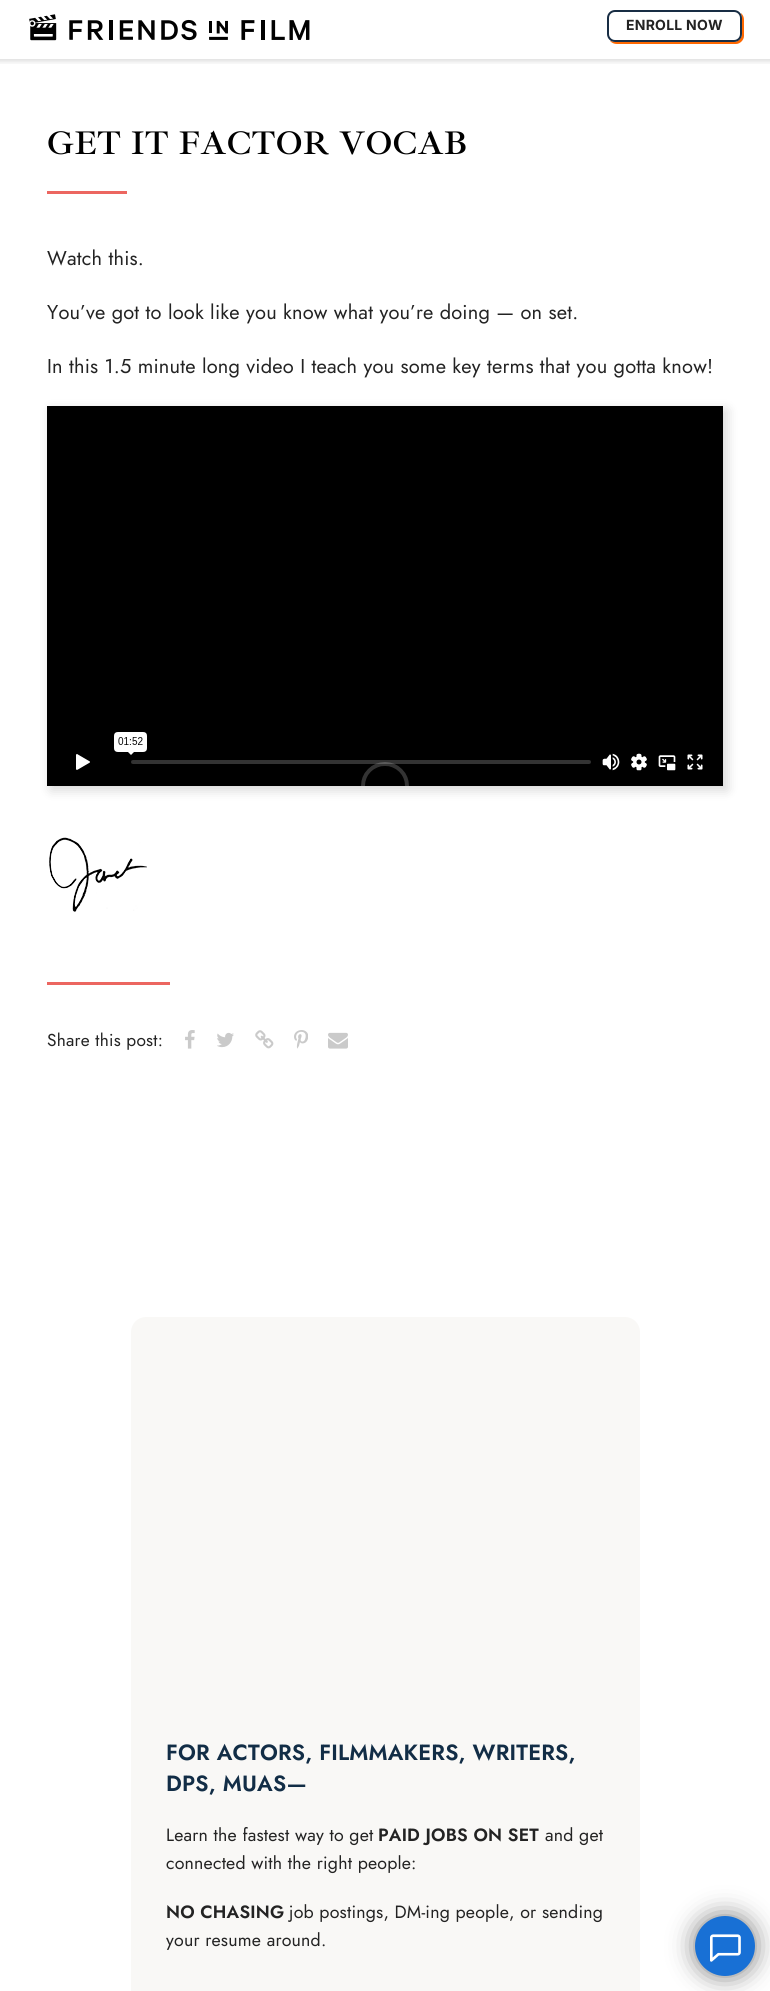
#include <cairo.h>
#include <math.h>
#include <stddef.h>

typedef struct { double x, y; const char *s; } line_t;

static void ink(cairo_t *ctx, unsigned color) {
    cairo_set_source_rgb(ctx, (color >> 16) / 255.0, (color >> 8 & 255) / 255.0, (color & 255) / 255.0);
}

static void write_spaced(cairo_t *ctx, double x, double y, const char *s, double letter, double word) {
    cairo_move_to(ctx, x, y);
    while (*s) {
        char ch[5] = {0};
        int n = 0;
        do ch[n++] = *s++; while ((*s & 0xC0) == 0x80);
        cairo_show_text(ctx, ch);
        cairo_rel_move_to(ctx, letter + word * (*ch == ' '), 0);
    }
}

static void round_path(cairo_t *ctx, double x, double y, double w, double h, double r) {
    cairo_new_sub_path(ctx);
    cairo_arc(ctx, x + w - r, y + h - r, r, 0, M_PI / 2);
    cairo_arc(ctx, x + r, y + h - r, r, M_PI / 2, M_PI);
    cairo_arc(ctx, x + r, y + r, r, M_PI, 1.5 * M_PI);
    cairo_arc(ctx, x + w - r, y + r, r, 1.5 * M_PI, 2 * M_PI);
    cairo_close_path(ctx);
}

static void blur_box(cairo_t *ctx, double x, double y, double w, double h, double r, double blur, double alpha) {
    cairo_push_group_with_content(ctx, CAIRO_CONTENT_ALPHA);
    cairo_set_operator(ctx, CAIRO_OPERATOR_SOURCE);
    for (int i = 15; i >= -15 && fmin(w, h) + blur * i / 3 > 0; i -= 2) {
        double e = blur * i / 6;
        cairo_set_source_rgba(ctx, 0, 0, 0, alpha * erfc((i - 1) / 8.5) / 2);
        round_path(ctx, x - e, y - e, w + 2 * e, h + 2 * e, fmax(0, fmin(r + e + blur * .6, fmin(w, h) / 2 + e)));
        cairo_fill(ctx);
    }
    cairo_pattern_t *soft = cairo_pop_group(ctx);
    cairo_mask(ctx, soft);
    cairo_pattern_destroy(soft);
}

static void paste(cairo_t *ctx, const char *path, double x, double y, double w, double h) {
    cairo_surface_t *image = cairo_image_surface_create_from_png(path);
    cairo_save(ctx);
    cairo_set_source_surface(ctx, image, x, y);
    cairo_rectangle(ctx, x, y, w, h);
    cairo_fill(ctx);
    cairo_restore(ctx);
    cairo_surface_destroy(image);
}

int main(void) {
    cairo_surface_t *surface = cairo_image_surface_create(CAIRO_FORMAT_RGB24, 770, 1991);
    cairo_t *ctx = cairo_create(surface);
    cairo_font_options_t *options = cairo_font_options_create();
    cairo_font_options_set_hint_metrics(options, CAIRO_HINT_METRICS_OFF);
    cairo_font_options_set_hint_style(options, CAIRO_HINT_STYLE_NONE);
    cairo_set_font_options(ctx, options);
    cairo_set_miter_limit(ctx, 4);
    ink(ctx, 0xFFFFFF);
    cairo_paint(ctx);
    cairo_save(ctx);
    cairo_rectangle(ctx, 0, 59, 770, 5);
    cairo_clip(ctx);
    ink(ctx, 0x000000);
    blur_box(ctx, -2, -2, 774, 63, 0, 3, 0.15);
    cairo_restore(ctx);
    paste(ctx, "media/1.png", 29, 14, 281, 27);
    ink(ctx, 0xFF6800);
    cairo_new_path(ctx);
    cairo_move_to(ctx, 610, 41);
    cairo_curve_to(ctx, 612, 43, 614, 44, 617, 44);
    cairo_line_to(ctx, 736, 44);
    cairo_curve_to(ctx, 740, 44, 744, 40, 744, 36);
    cairo_line_to(ctx, 744, 20);
    cairo_curve_to(ctx, 744, 17, 743, 15, 741, 13);
    cairo_curve_to(ctx, 741, 15, 742, 16, 742, 18);
    cairo_line_to(ctx, 742, 34);
    cairo_curve_to(ctx, 742, 38, 738, 42, 734, 42);
    cairo_line_to(ctx, 615, 42);
    cairo_curve_to(ctx, 613, 42, 612, 41, 610, 41);
    cairo_close_path(ctx);
    cairo_fill(ctx);
    ink(ctx, 0xFFFFFF);
    round_path(ctx, 608, 11, 133, 30, 7);
    cairo_fill_preserve(ctx);
    ink(ctx, 0x182D44);
    cairo_stroke(ctx);
    cairo_select_font_face(ctx, "Inter", CAIRO_FONT_SLANT_NORMAL, CAIRO_FONT_WEIGHT_BOLD);
    cairo_set_font_size(ctx, 14);
    ink(ctx, 0x232323);
    write_spaced(ctx, 626, 30, "ENROLL NOW", 0.25, 0);
    cairo_select_font_face(ctx, "Ibarra Real Nova SemiBold", CAIRO_FONT_SLANT_NORMAL, CAIRO_FONT_WEIGHT_NORMAL);
    cairo_set_font_size(ctx, 33.5);
    ink(ctx, 0x000000);
    write_spaced(ctx, 47, 154, "GET IT FACTOR VOCAB", 0.4, 0);
    ink(ctx, 0xEC6660);
    cairo_rectangle(ctx, 47, 191, 80, 3);
    cairo_fill(ctx);
    cairo_select_font_face(ctx, "Jost", CAIRO_FONT_SLANT_NORMAL, CAIRO_FONT_WEIGHT_NORMAL);
    cairo_set_font_size(ctx, 20);
    ink(ctx, 0x232323);
    {
        static const line_t items[] = {
            {47, 265, "Watch this."},
            {47, 319, "You’ve got to look like you know what you’re doing — on set."},
            {47, 373, "In this 1.5 minute long video I teach you some key terms that you gotta know!"},
        };
        for (size_t i = 0; i < sizeof items / sizeof *items; i++) {
            write_spaced(ctx, items[i].x, items[i].y, items[i].s, 0.2, 0);
        }
    }
    ink(ctx, 0x000000);
    blur_box(ctx, 51, 410, 676, 380, 0, 6, 0.16);
    ink(ctx, 0x000000);
    cairo_rectangle(ctx, 47, 406, 676, 380);
    cairo_fill(ctx);
    paste(ctx, "media/2.png", 76, 732, 627, 54);
    paste(ctx, "media/3.png", 49, 837, 98, 75);
    ink(ctx, 0xEC6660);
    cairo_rectangle(ctx, 47, 982, 123, 3);
    cairo_fill(ctx);
    cairo_set_font_size(ctx, 17.25);
    ink(ctx, 0x232323);
    write_spaced(ctx, 47, 1046, "Share this post:", 0.25, 0);
    paste(ctx, "media/4.png", 185, 1030, 10, 19);
    paste(ctx, "media/5.png", 217, 1032, 17, 16);
    paste(ctx, "media/6.png", 255, 1030, 19, 19);
    paste(ctx, "media/7.png", 294, 1030, 14, 19);
    paste(ctx, "media/8.png", 328, 1032, 20, 17);
    ink(ctx, 0xF9F8F6);
    round_path(ctx, 131, 1317, 509, 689, 15);
    cairo_fill(ctx);
    cairo_select_font_face(ctx, "Jost SemiBold", CAIRO_FONT_SLANT_NORMAL, CAIRO_FONT_WEIGHT_NORMAL);
    cairo_set_font_size(ctx, 22);
    ink(ctx, 0x122D46);
    write_spaced(ctx, 166, 1760, "FOR ACTORS, FILMMAKERS, WRITERS,", 0.2, 0);
    write_spaced(ctx, 166, 1791, "DPS, MUAS—", 0.2, 0);
    cairo_select_font_face(ctx, "Jost", CAIRO_FONT_SLANT_NORMAL, CAIRO_FONT_WEIGHT_NORMAL);
    cairo_set_font_size(ctx, 17.75);
    ink(ctx, 0x232323);
    write_spaced(ctx, 166, 1841, "Learn the fastest way to get", 0.2, 0);
    cairo_select_font_face(ctx, "Jost SemiBold", CAIRO_FONT_SLANT_NORMAL, CAIRO_FONT_WEIGHT_NORMAL);
    write_spaced(ctx, 378, 1841, "PAID JOBS ON SET", 0.2, 0);
    cairo_select_font_face(ctx, "Jost", CAIRO_FONT_SLANT_NORMAL, CAIRO_FONT_WEIGHT_NORMAL);
    write_spaced(ctx, 545, 1841, "and get", 0.2, 0);
    write_spaced(ctx, 166, 1869, "connected with the right people:", 0.2, 0);
    cairo_select_font_face(ctx, "Jost SemiBold", CAIRO_FONT_SLANT_NORMAL, CAIRO_FONT_WEIGHT_NORMAL);
    write_spaced(ctx, 166, 1918, "NO CHASING", 0.2, 0);
    cairo_select_font_face(ctx, "Jost", CAIRO_FONT_SLANT_NORMAL, CAIRO_FONT_WEIGHT_NORMAL);
    write_spaced(ctx, 289, 1918, "job postings, DM-ing people, or sending", 0.2, 0);
    write_spaced(ctx, 166, 1946, "your resume around.", 0.2, 0);
    ink(ctx, 0x7A7A7A);
    blur_box(ctx, 695, 1916, 60, 60, 30, 12.5, 1);
    ink(ctx, 0x1870D5);
    cairo_arc(ctx, 725, 1946, 30, 0, 2 * M_PI);
    cairo_fill(ctx);
    paste(ctx, "media/9.png", 710, 1934, 31, 28);
    cairo_surface_write_to_png(surface, "image.png");
    cairo_font_options_destroy(options);
    cairo_destroy(ctx);
    cairo_surface_destroy(surface);
    return 0;
}
